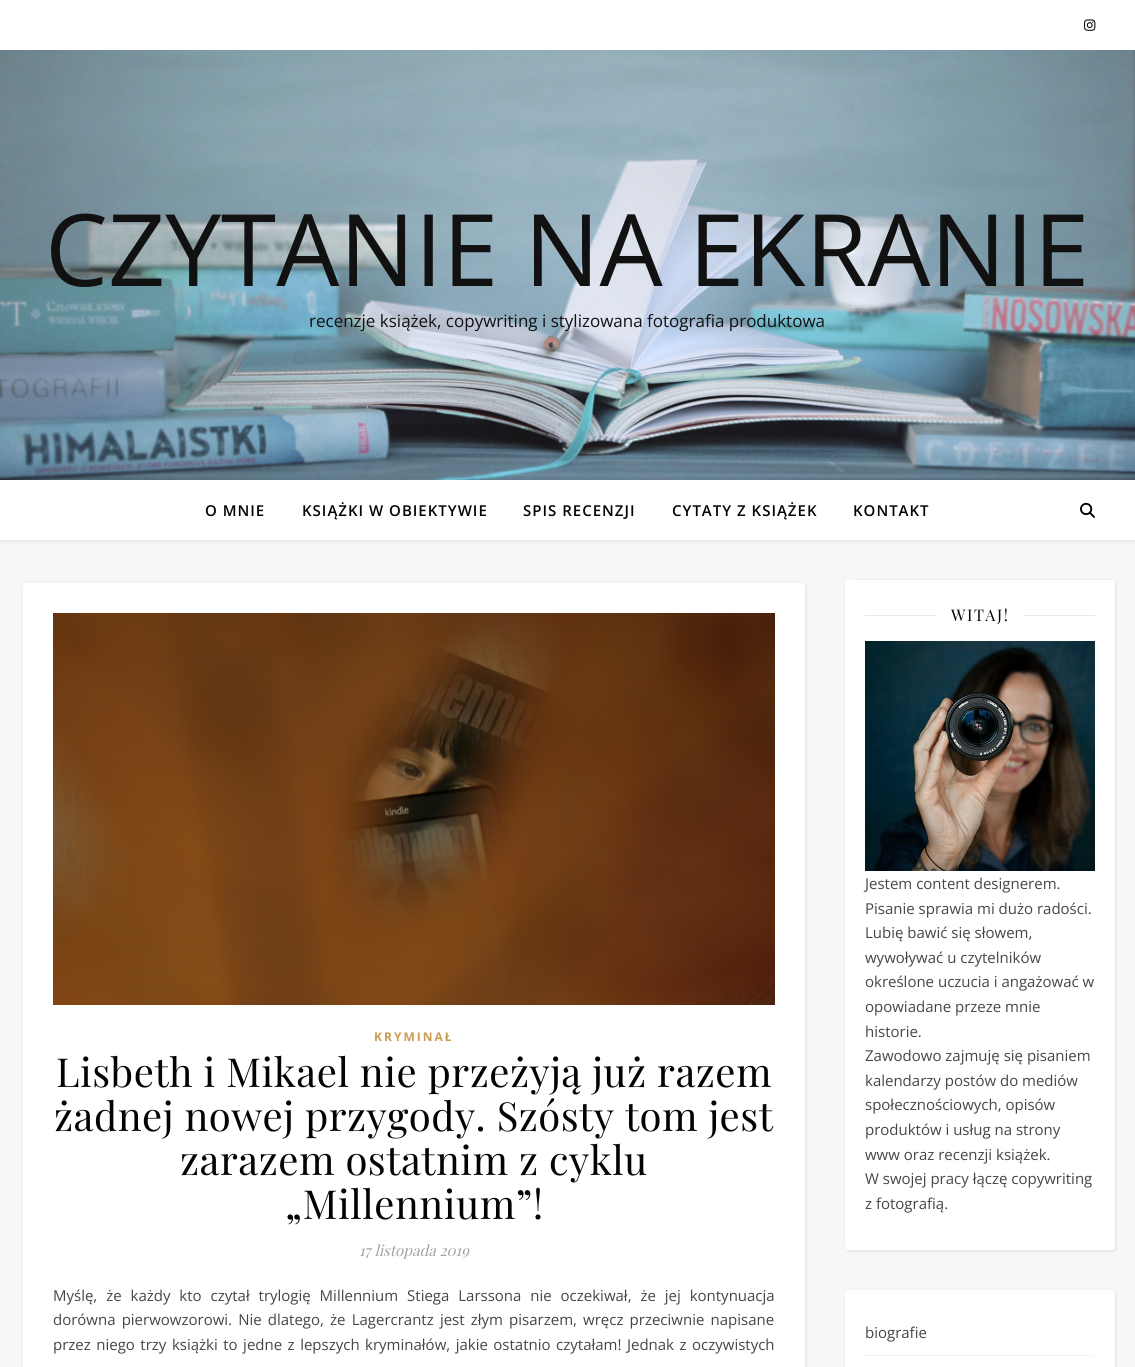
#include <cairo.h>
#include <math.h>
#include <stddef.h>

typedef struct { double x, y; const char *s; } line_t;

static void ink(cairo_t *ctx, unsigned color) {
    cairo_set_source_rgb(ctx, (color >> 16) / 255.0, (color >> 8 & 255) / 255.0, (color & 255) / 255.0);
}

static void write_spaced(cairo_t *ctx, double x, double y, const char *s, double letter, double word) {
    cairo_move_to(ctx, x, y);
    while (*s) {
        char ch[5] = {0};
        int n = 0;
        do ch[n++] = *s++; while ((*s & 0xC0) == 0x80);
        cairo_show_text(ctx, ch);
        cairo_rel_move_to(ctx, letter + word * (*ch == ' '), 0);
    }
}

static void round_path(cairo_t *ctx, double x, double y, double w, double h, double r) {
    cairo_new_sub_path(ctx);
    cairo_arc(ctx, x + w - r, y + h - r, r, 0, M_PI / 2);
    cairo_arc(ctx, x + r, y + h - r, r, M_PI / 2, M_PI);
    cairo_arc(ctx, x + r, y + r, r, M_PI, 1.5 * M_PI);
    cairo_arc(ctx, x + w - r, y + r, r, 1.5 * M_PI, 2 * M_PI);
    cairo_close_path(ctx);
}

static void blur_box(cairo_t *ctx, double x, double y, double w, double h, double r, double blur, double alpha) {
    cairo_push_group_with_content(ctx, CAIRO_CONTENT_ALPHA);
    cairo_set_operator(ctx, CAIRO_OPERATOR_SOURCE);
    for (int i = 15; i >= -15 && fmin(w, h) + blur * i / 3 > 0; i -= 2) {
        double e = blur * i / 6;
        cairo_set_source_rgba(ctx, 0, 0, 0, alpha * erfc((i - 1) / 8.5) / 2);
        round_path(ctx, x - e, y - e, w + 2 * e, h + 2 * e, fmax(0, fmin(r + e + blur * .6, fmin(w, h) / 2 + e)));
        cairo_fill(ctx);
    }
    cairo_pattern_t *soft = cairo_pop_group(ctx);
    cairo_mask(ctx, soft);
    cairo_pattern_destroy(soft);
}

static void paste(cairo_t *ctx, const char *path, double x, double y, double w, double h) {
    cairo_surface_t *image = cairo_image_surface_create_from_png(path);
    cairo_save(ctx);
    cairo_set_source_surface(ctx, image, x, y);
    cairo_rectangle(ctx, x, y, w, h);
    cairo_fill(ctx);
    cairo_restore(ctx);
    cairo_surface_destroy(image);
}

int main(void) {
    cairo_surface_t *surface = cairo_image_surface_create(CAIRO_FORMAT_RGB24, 1135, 1367);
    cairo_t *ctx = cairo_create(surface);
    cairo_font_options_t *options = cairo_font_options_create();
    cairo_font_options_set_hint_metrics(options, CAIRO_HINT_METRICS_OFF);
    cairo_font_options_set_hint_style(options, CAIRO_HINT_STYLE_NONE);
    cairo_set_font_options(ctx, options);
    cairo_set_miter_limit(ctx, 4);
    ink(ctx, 0xF7F7F7);
    cairo_paint(ctx);
    ink(ctx, 0xFFFFFF);
    cairo_rectangle(ctx, 0, 0, 1135, 50);
    cairo_fill(ctx);
    paste(ctx, "media/1.png", 1084, 19, 12, 12);
    paste(ctx, "media/2.png", 0, 50, 1135, 430);
    cairo_select_font_face(ctx, "Open Sans", CAIRO_FONT_SLANT_NORMAL, CAIRO_FONT_WEIGHT_NORMAL);
    cairo_set_font_size(ctx, 100);
    ink(ctx, 0x111111);
    cairo_move_to(ctx, 45, 286);
    cairo_show_text(ctx, "CZYTANIE NA EKRANIE");
    cairo_set_font_size(ctx, 17);
    cairo_move_to(ctx, 309, 327);
    cairo_show_text(ctx, "recenzje książek, copywriting i stylizowana fotografia produktowa");
    ink(ctx, 0x000000);
    blur_box(ctx, 0, 481, 1135, 60, 0, 2.5, 0.1);
    ink(ctx, 0xFFFFFF);
    cairo_rectangle(ctx, 0, 480, 1135, 60);
    cairo_fill(ctx);
    cairo_select_font_face(ctx, "Open Sans SemiBold", CAIRO_FONT_SLANT_NORMAL, CAIRO_FONT_WEIGHT_NORMAL);
    cairo_set_font_size(ctx, 15);
    ink(ctx, 0x030303);
    {
        static const line_t items[] = {
            {205, 516, "O MNIE"},
            {302, 516, "KSIĄŻKI W OBIEKTYWIE"},
            {523, 516, "SPIS RECENZJI"},
            {672, 516, "CYTATY Z KSIĄŻEK"},
            {853, 516, "KONTAKT"},
        };
        for (size_t i = 0; i < sizeof items / sizeof *items; i++) {
            write_spaced(ctx, items[i].x, items[i].y, items[i].s, 1, 0);
        }
    }
    paste(ctx, "media/3.png", 1080, 502, 15, 16);
    ink(ctx, 0x000000);
    blur_box(ctx, 24, 584, 782, 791, 3, 1.5, 0.1);
    ink(ctx, 0xFFFFFF);
    round_path(ctx, 23, 583, 782, 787, 3);
    cairo_fill(ctx);
    paste(ctx, "media/4.png", 53, 613, 722, 392);
    cairo_select_font_face(ctx, "Open Sans", CAIRO_FONT_SLANT_NORMAL, CAIRO_FONT_WEIGHT_BOLD);
    cairo_set_font_size(ctx, 12);
    ink(ctx, 0xCA9B52);
    write_spaced(ctx, 374, 1041, "KRYMINAŁ", 2, 0);
    cairo_select_font_face(ctx, "Playfair Display", CAIRO_FONT_SLANT_NORMAL, CAIRO_FONT_WEIGHT_NORMAL);
    cairo_set_font_size(ctx, 40);
    ink(ctx, 0x030303);
    {
        static const line_t items[] = {
            {56, 1087, "Lisbeth i Mikael nie przeżyją już razem"},
            {54, 1131, "żadnej nowej przygody. Szósty tom jest"},
            {180, 1175, "zarazem ostatnim z cyklu"},
            {285, 1219, "„Millennium”!"},
        };
        for (size_t i = 0; i < sizeof items / sizeof *items; i++) {
            write_spaced(ctx, items[i].x, items[i].y, items[i].s, 0.5, 0);
        }
    }
    cairo_select_font_face(ctx, "Playfair Display", CAIRO_FONT_SLANT_ITALIC, CAIRO_FONT_WEIGHT_NORMAL);
    cairo_set_font_size(ctx, 15);
    ink(ctx, 0xA1A1A1);
    cairo_move_to(ctx, 359, 1256);
    cairo_show_text(ctx, "17 listopada 2019");
    cairo_select_font_face(ctx, "Open Sans", CAIRO_FONT_SLANT_NORMAL, CAIRO_FONT_WEIGHT_NORMAL);
    ink(ctx, 0x464646);
    write_spaced(ctx, 53, 1301, "Myślę, że każdy kto czytał trylogię Millennium Stiega Larssona nie oczekiwał, że jej kontynuacja", 0, 5);
    write_spaced(ctx, 53, 1325, "dorówna pierwowzorowi. Nie dlatego, że Lagercrantz jest złym pisarzem, wręcz przeciwnie napisane", 0, 2.25);
    write_spaced(ctx, 53, 1350, "przez niego trzy książki to jedne z lepszych kryminałów, jakie ostatnio czytałam! Jednak z oczywistych", 0, 1.6);
    ink(ctx, 0x000000);
    blur_box(ctx, 846, 581, 270, 670, 3, 1.5, 0.1);
    ink(ctx, 0xFFFFFF);
    round_path(ctx, 845, 580, 270, 670, 3);
    cairo_fill(ctx);
    ink(ctx, 0xE8E8E8);
    cairo_rectangle(ctx, 865, 615, 71, 1);
    cairo_fill(ctx);
    cairo_select_font_face(ctx, "Playfair Display", CAIRO_FONT_SLANT_NORMAL, CAIRO_FONT_WEIGHT_NORMAL);
    cairo_set_font_size(ctx, 16);
    ink(ctx, 0x030303);
    write_spaced(ctx, 951, 621, "WITAJ!", 1.5, 0);
    ink(ctx, 0xE8E8E8);
    cairo_rectangle(ctx, 1024, 615, 71, 1);
    cairo_fill(ctx);
    paste(ctx, "media/5.png", 865, 641, 230, 230);
    cairo_select_font_face(ctx, "Open Sans", CAIRO_FONT_SLANT_NORMAL, CAIRO_FONT_WEIGHT_NORMAL);
    cairo_set_font_size(ctx, 15);
    ink(ctx, 0x464646);
    {
        static const line_t items[] = {
            {865, 889, "Jestem content designerem."},
            {865, 914, "Pisanie sprawia mi dużo radości."},
            {865, 938, "Lubię bawić się słowem,"},
            {865, 963, "wywoływać u czytelników"},
            {865, 987, "określone uczucia i angażować w"},
            {865, 1012, "opowiadane przeze mnie"},
            {865, 1037, "historie."},
            {865, 1061, "Zawodowo zajmuję się pisaniem"},
            {865, 1086, "kalendarzy postów do mediów"},
            {865, 1110, "społecznościowych, opisów"},
            {865, 1135, "produktów i usług na strony"},
            {865, 1160, "www oraz recenzji książek."},
            {865, 1184, "W swojej pracy łączę copywriting"},
            {865, 1209, "z fotografią."},
        };
        for (size_t i = 0; i < sizeof items / sizeof *items; i++) {
            cairo_move_to(ctx, items[i].x, items[i].y);
            cairo_show_text(ctx, items[i].s);
        }
    }
    ink(ctx, 0x000000);
    blur_box(ctx, 846, 1291, 270, 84, 3, 1.5, 0.1);
    ink(ctx, 0xFFFFFF);
    round_path(ctx, 845, 1290, 270, 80, 3);
    cairo_fill(ctx);
    cairo_new_path(ctx);
    cairo_move_to(ctx, 865, 1355.5);
    cairo_line_to(ctx, 1095, 1355.5);
    ink(ctx, 0xE8E8E8);
    cairo_set_line_width(ctx, 1);
    cairo_set_dash(ctx, (double[]){1, 1}, 2, 0);
    cairo_stroke(ctx);
    ink(ctx, 0x464646);
    cairo_move_to(ctx, 865, 1338);
    cairo_show_text(ctx, "biografie");
    cairo_surface_write_to_png(surface, "image.png");
    cairo_font_options_destroy(options);
    cairo_destroy(ctx);
    cairo_surface_destroy(surface);
    return 0;
}
